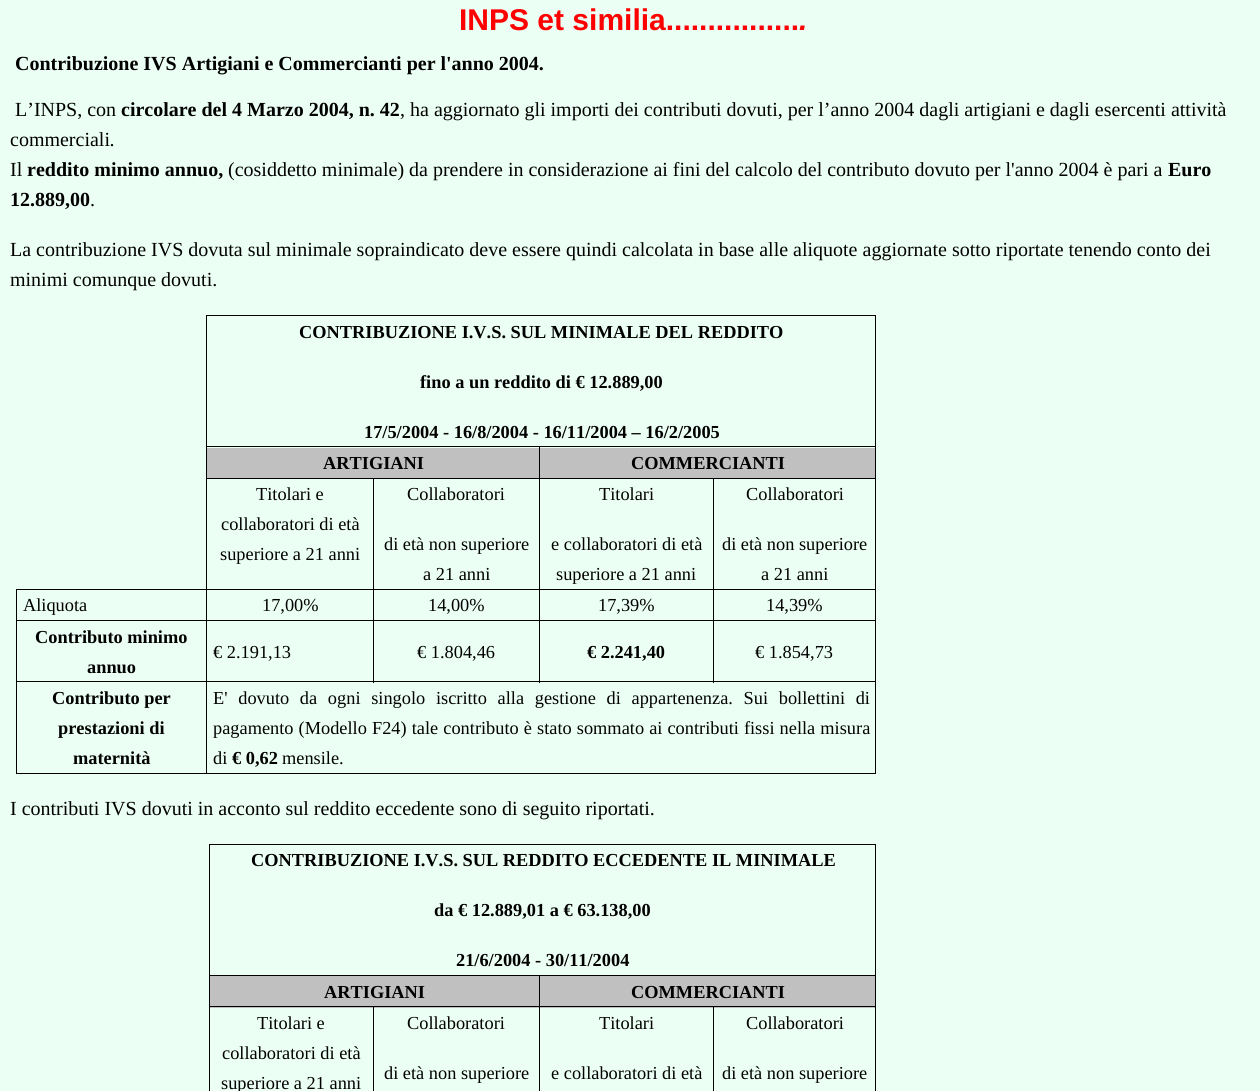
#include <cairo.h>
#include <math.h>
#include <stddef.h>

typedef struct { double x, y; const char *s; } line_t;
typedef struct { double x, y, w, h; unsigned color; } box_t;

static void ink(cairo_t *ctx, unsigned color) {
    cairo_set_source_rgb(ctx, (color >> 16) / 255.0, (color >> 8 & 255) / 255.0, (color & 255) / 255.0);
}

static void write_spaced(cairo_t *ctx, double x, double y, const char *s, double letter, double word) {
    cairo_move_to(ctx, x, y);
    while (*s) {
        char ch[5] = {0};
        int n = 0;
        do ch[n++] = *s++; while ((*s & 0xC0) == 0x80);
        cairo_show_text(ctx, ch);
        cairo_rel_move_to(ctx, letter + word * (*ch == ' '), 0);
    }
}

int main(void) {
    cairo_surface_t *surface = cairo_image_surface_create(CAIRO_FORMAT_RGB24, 1260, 1091);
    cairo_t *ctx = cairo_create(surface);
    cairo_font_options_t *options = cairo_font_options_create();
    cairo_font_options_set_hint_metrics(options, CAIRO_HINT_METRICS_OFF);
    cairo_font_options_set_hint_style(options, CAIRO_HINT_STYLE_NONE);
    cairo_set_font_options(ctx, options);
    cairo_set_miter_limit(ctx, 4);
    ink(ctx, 0xECFFF5);
    cairo_paint(ctx);
    cairo_select_font_face(ctx, "Liberation Sans", CAIRO_FONT_SLANT_NORMAL, CAIRO_FONT_WEIGHT_BOLD);
    cairo_set_font_size(ctx, 30);
    ink(ctx, 0xFF0000);
    cairo_move_to(ctx, 459, 30);
    cairo_show_text(ctx, "INPS et similia................");
    cairo_select_font_face(ctx, "Liberation Sans", CAIRO_FONT_SLANT_ITALIC, CAIRO_FONT_WEIGHT_BOLD);
    cairo_move_to(ctx, 799, 30);
    cairo_show_text(ctx, ".");
    cairo_select_font_face(ctx, "Liberation Serif", CAIRO_FONT_SLANT_NORMAL, CAIRO_FONT_WEIGHT_BOLD);
    cairo_set_font_size(ctx, 20);
    ink(ctx, 0x000000);
    cairo_move_to(ctx, 15, 70);
    cairo_show_text(ctx, "Contribuzione IVS Artigiani e Commercianti per l'anno 2004.");
    cairo_select_font_face(ctx, "Liberation Serif", CAIRO_FONT_SLANT_NORMAL, CAIRO_FONT_WEIGHT_NORMAL);
    cairo_move_to(ctx, 15, 116);
    cairo_show_text(ctx, "L’INPS, con");
    cairo_select_font_face(ctx, "Liberation Serif", CAIRO_FONT_SLANT_NORMAL, CAIRO_FONT_WEIGHT_BOLD);
    cairo_move_to(ctx, 121, 116);
    cairo_show_text(ctx, "circolare del 4 Marzo 2004, n. 42");
    cairo_select_font_face(ctx, "Liberation Serif", CAIRO_FONT_SLANT_NORMAL, CAIRO_FONT_WEIGHT_NORMAL);
    cairo_move_to(ctx, 400, 116);
    cairo_show_text(ctx, ", ha aggiornato gli importi dei contributi dovuti, per l’anno 2004 dagli artigiani e dagli esercenti attività");
    cairo_move_to(ctx, 10, 146);
    cairo_show_text(ctx, "commerciali");
    cairo_select_font_face(ctx, "Liberation Serif", CAIRO_FONT_SLANT_ITALIC, CAIRO_FONT_WEIGHT_NORMAL);
    cairo_move_to(ctx, 110, 146);
    cairo_show_text(ctx, ".");
    cairo_select_font_face(ctx, "Liberation Serif", CAIRO_FONT_SLANT_NORMAL, CAIRO_FONT_WEIGHT_NORMAL);
    cairo_move_to(ctx, 10, 176);
    cairo_show_text(ctx, "Il");
    cairo_select_font_face(ctx, "Liberation Serif", CAIRO_FONT_SLANT_NORMAL, CAIRO_FONT_WEIGHT_BOLD);
    cairo_move_to(ctx, 27, 176);
    cairo_show_text(ctx, "reddito minimo annuo,");
    cairo_select_font_face(ctx, "Liberation Serif", CAIRO_FONT_SLANT_NORMAL, CAIRO_FONT_WEIGHT_NORMAL);
    cairo_move_to(ctx, 228, 176);
    cairo_show_text(ctx, "(cosiddetto minimale) da prendere in considerazione ai fini del calcolo del contributo dovuto per l'anno 2004 è pari a");
    cairo_select_font_face(ctx, "Liberation Serif", CAIRO_FONT_SLANT_NORMAL, CAIRO_FONT_WEIGHT_BOLD);
    cairo_move_to(ctx, 1168, 176);
    cairo_show_text(ctx, "Euro");
    cairo_move_to(ctx, 10, 206);
    cairo_show_text(ctx, "12.889,00");
    cairo_select_font_face(ctx, "Liberation Serif", CAIRO_FONT_SLANT_NORMAL, CAIRO_FONT_WEIGHT_NORMAL);
    {
        static const line_t items[] = {
            {90, 206, "."},
            {10, 256, "La contribuzione IVS dovuta sul minimale sopraindicato deve essere quindi calcolata in base alle aliquote aggiornate sotto riportate tenendo conto dei"},
            {10, 286, "minimi comunque dovuti."},
        };
        for (size_t i = 0; i < sizeof items / sizeof *items; i++) {
            cairo_move_to(ctx, items[i].x, items[i].y);
            cairo_show_text(ctx, items[i].s);
        }
    }
    {
        static const box_t items[] = {
            {206, 315, 670, 1, 0x000000},
            {875, 446, 1, 328, 0x000000},
            {875, 315, 1, 133, 0x000000},
            {713, 681, 163, 1, 0x000000},
            {713, 620, 1, 63, 0x000000},
            {713, 620, 163, 1, 0x000000},
            {713, 589, 1, 32, 0x000000},
            {713, 589, 163, 1, 0x000000},
            {713, 478, 1, 112, 0x000000},
            {539, 681, 175, 1, 0x000000},
            {539, 620, 1, 63, 0x000000},
            {539, 620, 175, 1, 0x000000},
            {539, 589, 1, 32, 0x000000},
            {539, 589, 175, 1, 0x000000},
            {539, 478, 1, 112, 0x000000},
            {539, 478, 337, 1, 0x000000},
            {539, 446, 1, 33, 0x000000},
            {373, 681, 167, 1, 0x000000},
            {373, 620, 1, 63, 0x000000},
            {373, 620, 167, 1, 0x000000},
            {373, 589, 1, 32, 0x000000},
            {373, 589, 167, 1, 0x000000},
            {373, 478, 1, 112, 0x000000},
            {206, 773, 670, 1, 0x000000},
            {206, 681, 1, 93, 0x000000},
            {206, 681, 168, 1, 0x000000},
            {206, 620, 1, 63, 0x000000},
            {206, 620, 168, 1, 0x000000},
            {206, 589, 1, 32, 0x000000},
            {206, 589, 168, 1, 0x000000},
            {206, 478, 1, 112, 0x000000},
            {206, 478, 334, 1, 0x000000},
            {206, 446, 1, 33, 0x000000},
            {206, 446, 670, 1, 0x000000},
            {206, 315, 1, 133, 0x000000},
        };
        for (size_t i = 0; i < sizeof items / sizeof *items; i++) {
            ink(ctx, items[i].color);
            cairo_rectangle(ctx, items[i].x, items[i].y, items[i].w, items[i].h);
            cairo_fill(ctx);
        }
    }
    cairo_select_font_face(ctx, "Liberation Serif", CAIRO_FONT_SLANT_NORMAL, CAIRO_FONT_WEIGHT_BOLD);
    cairo_set_font_size(ctx, 18.35);
    {
        static const line_t items[] = {
            {299, 338, "CONTRIBUZIONE I.V.S. SUL MINIMALE DEL REDDITO"},
            {420, 388, "fino a un reddito di € 12.889,00"},
            {364, 438, "17/5/2004 - 16/8/2004 - 16/11/2004 – 16/2/2005"},
        };
        for (size_t i = 0; i < sizeof items / sizeof *items; i++) {
            cairo_move_to(ctx, items[i].x, items[i].y);
            cairo_show_text(ctx, items[i].s);
        }
    }
    ink(ctx, 0xC0C0C0);
    cairo_rectangle(ctx, 207, 448, 332, 30);
    cairo_fill(ctx);
    ink(ctx, 0x000000);
    cairo_move_to(ctx, 323, 469);
    cairo_show_text(ctx, "ARTIGIANI");
    ink(ctx, 0xC0C0C0);
    cairo_rectangle(ctx, 540, 448, 335, 30);
    cairo_fill(ctx);
    ink(ctx, 0x000000);
    cairo_move_to(ctx, 631, 469);
    cairo_show_text(ctx, "COMMERCIANTI");
    {
        static const box_t items[] = {
            {16, 773, 192, 1, 0x000000},
            {16, 681, 1, 93, 0x000000},
            {16, 681, 192, 1, 0x000000},
            {16, 620, 1, 63, 0x000000},
            {16, 620, 192, 1, 0x000000},
            {16, 589, 1, 32, 0x000000},
            {16, 589, 192, 1, 0x000000},
        };
        for (size_t i = 0; i < sizeof items / sizeof *items; i++) {
            ink(ctx, items[i].color);
            cairo_rectangle(ctx, items[i].x, items[i].y, items[i].w, items[i].h);
            cairo_fill(ctx);
        }
    }
    cairo_select_font_face(ctx, "Liberation Serif", CAIRO_FONT_SLANT_NORMAL, CAIRO_FONT_WEIGHT_NORMAL);
    {
        static const line_t items[] = {
            {256, 500, "Titolari e"},
            {221, 530, "collaboratori di età"},
            {220, 560, "superiore a 21 anni"},
            {407, 500, "Collaboratori"},
            {384, 550, "di età non superiore"},
            {423, 580, "a 21 anni"},
            {599, 500, "Titolari"},
            {551, 550, "e collaboratori di età"},
            {556, 580, "superiore a 21 anni"},
            {746, 500, "Collaboratori"},
            {722, 550, "di età non superiore"},
            {761, 580, "a 21 anni"},
            {23, 611, "Aliquota"},
            {262, 611, "17,00%"},
            {428, 611, "14,00%"},
            {598, 611, "17,39%"},
            {766, 611, "14,39%"},
        };
        for (size_t i = 0; i < sizeof items / sizeof *items; i++) {
            cairo_move_to(ctx, items[i].x, items[i].y);
            cairo_show_text(ctx, items[i].s);
        }
    }
    cairo_select_font_face(ctx, "Liberation Serif", CAIRO_FONT_SLANT_NORMAL, CAIRO_FONT_WEIGHT_BOLD);
    cairo_move_to(ctx, 35, 643);
    cairo_show_text(ctx, "Contributo minimo");
    cairo_move_to(ctx, 87, 673);
    cairo_show_text(ctx, "annuo");
    cairo_select_font_face(ctx, "Liberation Serif", CAIRO_FONT_SLANT_NORMAL, CAIRO_FONT_WEIGHT_NORMAL);
    cairo_move_to(ctx, 213, 658);
    cairo_show_text(ctx, "€ 2.191,13");
    cairo_move_to(ctx, 417, 658);
    cairo_show_text(ctx, "€ 1.804,46");
    cairo_select_font_face(ctx, "Liberation Serif", CAIRO_FONT_SLANT_NORMAL, CAIRO_FONT_WEIGHT_BOLD);
    cairo_move_to(ctx, 587, 658);
    cairo_show_text(ctx, "€ 2.241,40");
    cairo_select_font_face(ctx, "Liberation Serif", CAIRO_FONT_SLANT_NORMAL, CAIRO_FONT_WEIGHT_NORMAL);
    cairo_move_to(ctx, 755, 658);
    cairo_show_text(ctx, "€ 1.854,73");
    cairo_select_font_face(ctx, "Liberation Serif", CAIRO_FONT_SLANT_NORMAL, CAIRO_FONT_WEIGHT_BOLD);
    {
        static const line_t items[] = {
            {52, 704, "Contributo per"},
            {58, 734, "prestazioni di"},
            {73, 764, "maternità"},
        };
        for (size_t i = 0; i < sizeof items / sizeof *items; i++) {
            cairo_move_to(ctx, items[i].x, items[i].y);
            cairo_show_text(ctx, items[i].s);
        }
    }
    cairo_select_font_face(ctx, "Liberation Serif", CAIRO_FONT_SLANT_NORMAL, CAIRO_FONT_WEIGHT_NORMAL);
    write_spaced(ctx, 213, 704, "E' dovuto da ogni singolo iscritto alla gestione di appartenenza. Sui bollettini di", 0, 6.1);
    write_spaced(ctx, 213, 734, "pagamento (Modello F24) tale contributo è stato sommato ai contributi fissi nella misura", 0, 0.5);
    cairo_move_to(ctx, 213, 764);
    cairo_show_text(ctx, "di");
    cairo_select_font_face(ctx, "Liberation Serif", CAIRO_FONT_SLANT_NORMAL, CAIRO_FONT_WEIGHT_BOLD);
    cairo_move_to(ctx, 232, 764);
    cairo_show_text(ctx, "€ 0,62");
    cairo_select_font_face(ctx, "Liberation Serif", CAIRO_FONT_SLANT_NORMAL, CAIRO_FONT_WEIGHT_NORMAL);
    cairo_move_to(ctx, 282, 764);
    cairo_show_text(ctx, "mensile.");
    cairo_set_font_size(ctx, 20);
    cairo_move_to(ctx, 10, 815);
    cairo_show_text(ctx, "I contributi IVS dovuti in acconto sul reddito eccedente sono di seguito riportati.");
    {
        static const box_t items[] = {
            {209, 844, 667, 1, 0x000000},
            {875, 975, 1, 116, 0x000000},
            {875, 844, 1, 132, 0x000000},
            {540, 976, 335, 32, 0xC0C0C0},
            {539, 1006, 1, 85, 0x000000},
            {713, 1006, 1, 85, 0x000000},
            {539, 1006, 337, 1, 0x000000},
            {539, 975, 1, 33, 0x000000},
            {210, 976, 329, 32, 0xC0C0C0},
            {209, 1006, 1, 85, 0x000000},
            {373, 1006, 1, 85, 0x000000},
            {209, 1006, 331, 1, 0x000000},
            {209, 975, 1, 33, 0x000000},
            {209, 975, 667, 1, 0x000000},
            {209, 844, 1, 132, 0x000000},
        };
        for (size_t i = 0; i < sizeof items / sizeof *items; i++) {
            ink(ctx, items[i].color);
            cairo_rectangle(ctx, items[i].x, items[i].y, items[i].w, items[i].h);
            cairo_fill(ctx);
        }
    }
    cairo_select_font_face(ctx, "Liberation Serif", CAIRO_FONT_SLANT_NORMAL, CAIRO_FONT_WEIGHT_BOLD);
    cairo_set_font_size(ctx, 18.35);
    {
        static const line_t items[] = {
            {251, 866, "CONTRIBUZIONE I.V.S. SUL REDDITO ECCEDENTE IL MINIMALE"},
            {434, 916, "da € 12.889,01 a € 63.138,00"},
            {456, 966, "21/6/2004 - 30/11/2004"},
            {324, 998, "ARTIGIANI"},
            {631, 998, "COMMERCIANTI"},
        };
        for (size_t i = 0; i < sizeof items / sizeof *items; i++) {
            cairo_move_to(ctx, items[i].x, items[i].y);
            cairo_show_text(ctx, items[i].s);
        }
    }
    cairo_select_font_face(ctx, "Liberation Serif", CAIRO_FONT_SLANT_NORMAL, CAIRO_FONT_WEIGHT_NORMAL);
    {
        static const line_t items[] = {
            {257, 1029, "Titolari e"},
            {222, 1059, "collaboratori di età"},
            {221, 1089, "superiore a 21 anni"},
            {407, 1029, "Collaboratori"},
            {384, 1079, "di età non superiore"},
            {599, 1029, "Titolari"},
            {551, 1079, "e collaboratori di età"},
            {746, 1029, "Collaboratori"},
            {722, 1079, "di età non superiore"},
        };
        for (size_t i = 0; i < sizeof items / sizeof *items; i++) {
            cairo_move_to(ctx, items[i].x, items[i].y);
            cairo_show_text(ctx, items[i].s);
        }
    }
    cairo_surface_write_to_png(surface, "image.png");
    cairo_font_options_destroy(options);
    cairo_destroy(ctx);
    cairo_surface_destroy(surface);
    return 0;
}
